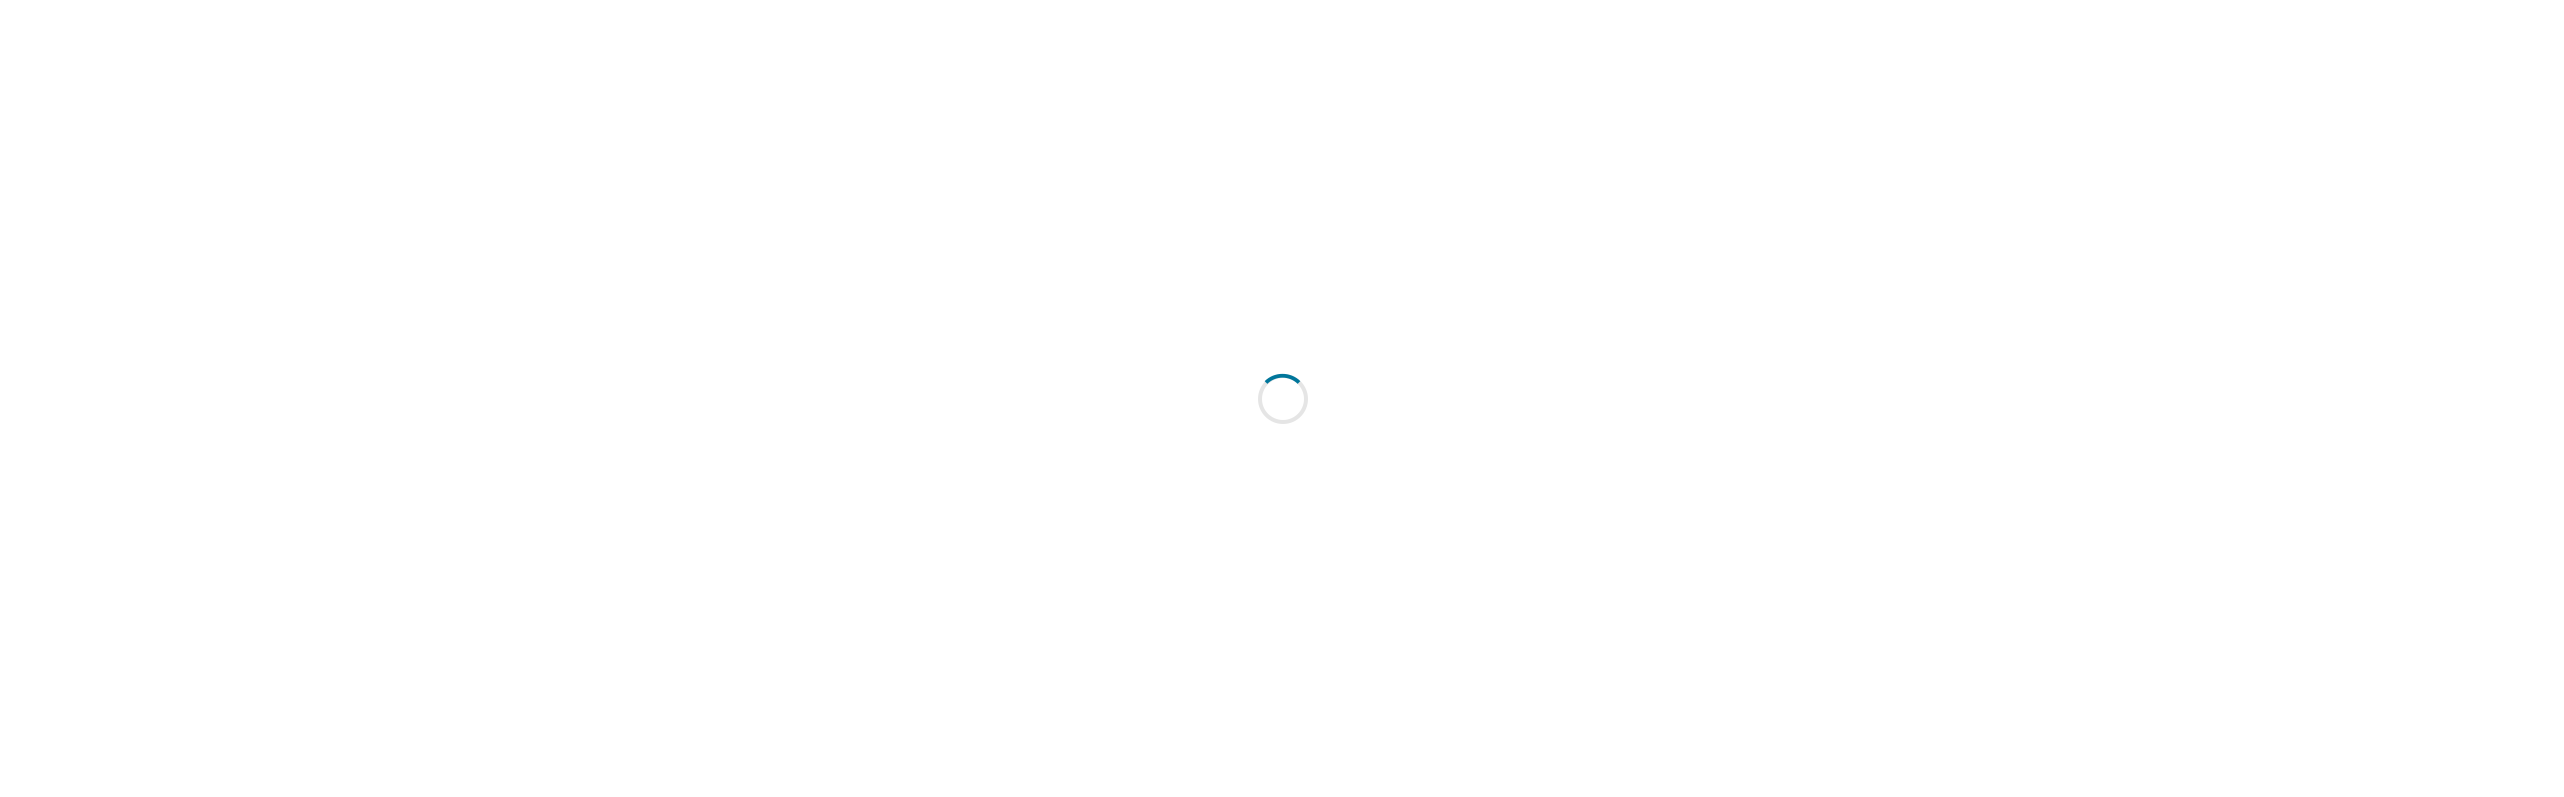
#include <cairo.h>
#include <math.h>
#include <stddef.h>


static void ink(cairo_t *ctx, unsigned color) {
    cairo_set_source_rgb(ctx, (color >> 16) / 255.0, (color >> 8 & 255) / 255.0, (color & 255) / 255.0);
}

int main(void) {
    cairo_surface_t *surface = cairo_image_surface_create(CAIRO_FORMAT_RGB24, 2564, 797);
    cairo_t *ctx = cairo_create(surface);
    cairo_font_options_t *options = cairo_font_options_create();
    cairo_font_options_set_hint_metrics(options, CAIRO_HINT_METRICS_OFF);
    cairo_font_options_set_hint_style(options, CAIRO_HINT_STYLE_NONE);
    cairo_set_font_options(ctx, options);
    cairo_set_miter_limit(ctx, 4);
    ink(ctx, 0xFFFFFF);
    cairo_paint(ctx);
    cairo_arc(ctx, 1283, 399, 23, 0, 2 * M_PI);
    ink(ctx, 0xE5E5E5);
    cairo_set_line_width(ctx, 4);
    cairo_stroke(ctx);
    cairo_new_path(ctx);
    cairo_move_to(ctx, 1266, 382.5);
    cairo_curve_to(ctx, 1275, 373.5, 1290, 373.5, 1299, 382.5);
    ink(ctx, 0x00769B);
    cairo_set_line_width(ctx, 3.8);
    cairo_stroke(ctx);
    cairo_surface_write_to_png(surface, "image.png");
    cairo_font_options_destroy(options);
    cairo_destroy(ctx);
    cairo_surface_destroy(surface);
    return 0;
}
